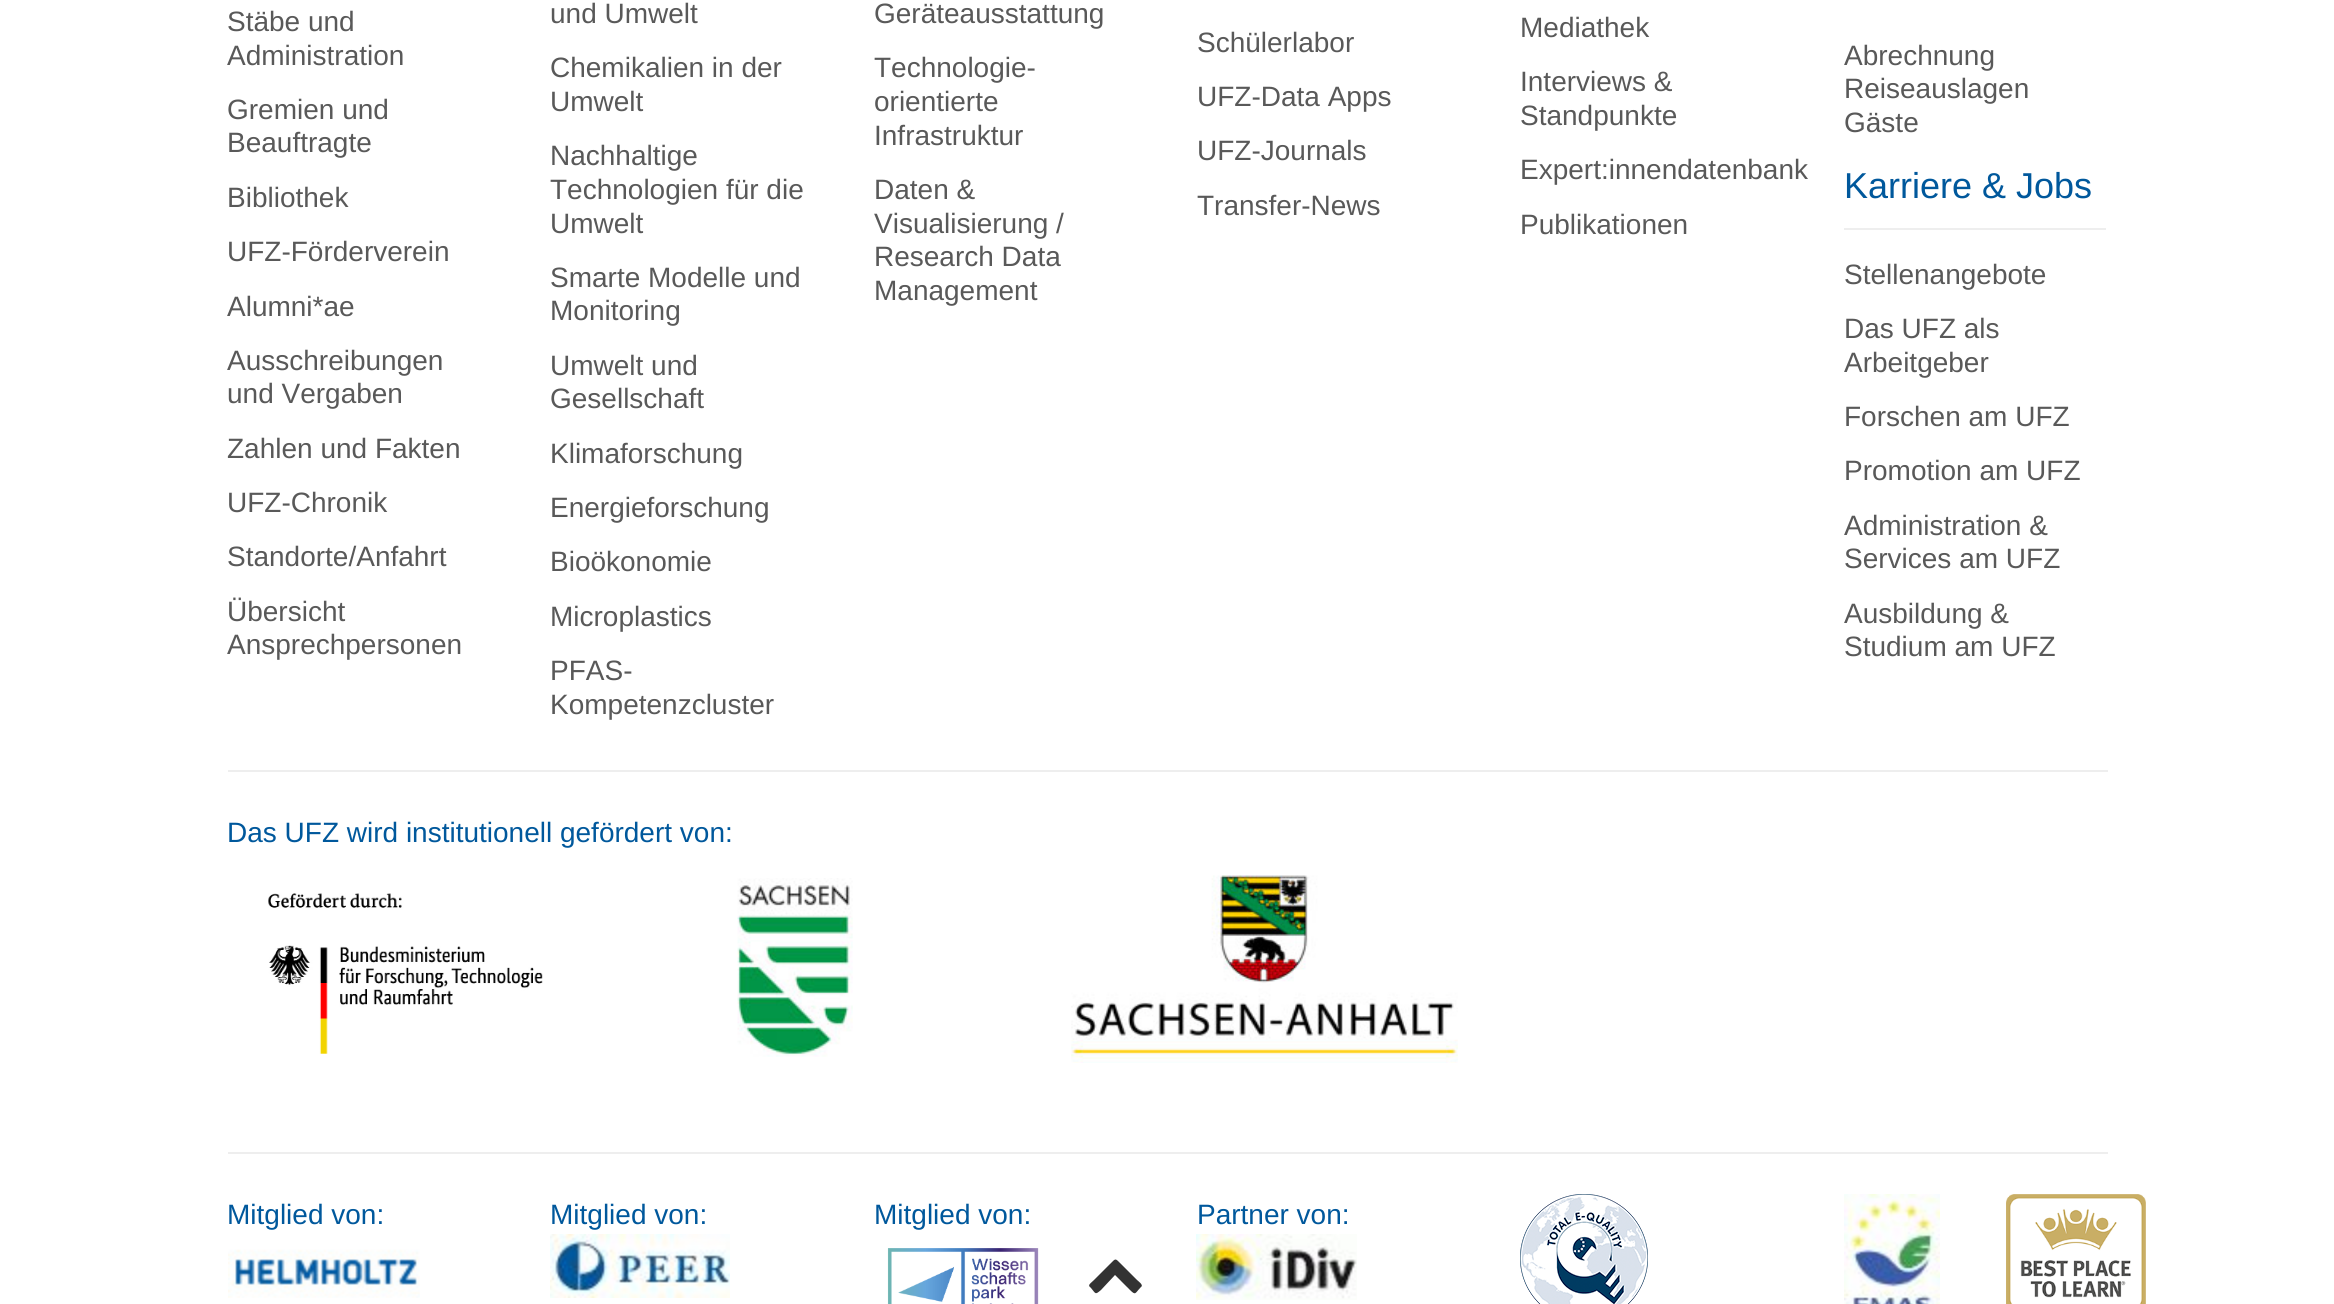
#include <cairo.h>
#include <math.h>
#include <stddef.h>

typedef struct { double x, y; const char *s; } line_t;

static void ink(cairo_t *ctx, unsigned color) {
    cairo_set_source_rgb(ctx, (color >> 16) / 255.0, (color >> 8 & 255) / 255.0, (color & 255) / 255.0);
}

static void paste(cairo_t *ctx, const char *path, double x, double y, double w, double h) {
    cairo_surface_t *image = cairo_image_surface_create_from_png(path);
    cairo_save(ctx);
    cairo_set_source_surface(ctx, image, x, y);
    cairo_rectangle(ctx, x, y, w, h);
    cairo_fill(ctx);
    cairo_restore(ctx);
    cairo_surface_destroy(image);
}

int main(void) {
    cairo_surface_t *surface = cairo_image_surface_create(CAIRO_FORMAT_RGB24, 2334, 1304);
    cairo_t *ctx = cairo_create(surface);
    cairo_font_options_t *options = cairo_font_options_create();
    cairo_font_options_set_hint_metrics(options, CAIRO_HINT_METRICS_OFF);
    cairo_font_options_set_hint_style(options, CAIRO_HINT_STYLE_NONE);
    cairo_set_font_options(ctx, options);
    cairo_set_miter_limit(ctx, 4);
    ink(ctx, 0xFFFFFF);
    cairo_paint(ctx);
    cairo_select_font_face(ctx, "Liberation Sans", CAIRO_FONT_SLANT_NORMAL, CAIRO_FONT_WEIGHT_NORMAL);
    cairo_set_font_size(ctx, 28);
    ink(ctx, 0x595959);
    {
        static const line_t items[] = {
            {227, 31, "Stäbe und"},
            {227, 65, "Administration"},
            {227, 119, "Gremien und"},
            {227, 152, "Beauftragte"},
            {227, 207, "Bibliothek"},
            {227, 261, "UFZ-Förderverein"},
            {227, 316, "Alumni*ae"},
            {227, 370, "Ausschreibungen"},
            {227, 403, "und Vergaben"},
            {227, 458, "Zahlen und Fakten"},
            {227, 512, "UFZ-Chronik"},
            {227, 566, "Standorte/Anfahrt"},
            {227, 621, "Übersicht"},
            {227, 654, "Ansprechpersonen"},
            {550, 23, "und Umwelt"},
            {550, 77, "Chemikalien in der"},
            {550, 111, "Umwelt"},
            {550, 165, "Nachhaltige"},
            {550, 199, "Technologien für die"},
            {550, 233, "Umwelt"},
            {550, 287, "Smarte Modelle und"},
            {550, 320, "Monitoring"},
            {550, 375, "Umwelt und"},
            {550, 408, "Gesellschaft"},
            {550, 463, "Klimaforschung"},
            {550, 517, "Energieforschung"},
            {550, 571, "Bioökonomie"},
            {550, 626, "Microplastics"},
            {550, 680, "PFAS-"},
            {550, 714, "Kompetenzcluster"},
            {874, 23, "Geräteausstattung"},
            {874, 77, "Technologie-"},
            {874, 111, "orientierte"},
            {874, 145, "Infrastruktur"},
            {874, 199, "Daten &"},
            {874, 233, "Visualisierung /"},
            {874, 266, "Research Data"},
            {874, 300, "Management"},
            {1197, 52, "Schülerlabor"},
            {1197, 106, "UFZ-Data Apps"},
            {1197, 160, "UFZ-Journals"},
            {1197, 215, "Transfer-News"},
            {1520, 37, "Mediathek"},
            {1520, 91, "Interviews &"},
            {1520, 125, "Standpunkte"},
            {1520, 179, "Expert:innendatenbank"},
            {1520, 234, "Publikationen"},
            {1844, 65, "Abrechnung"},
            {1844, 98, "Reiseauslagen"},
            {1844, 132, "Gäste"},
        };
        for (size_t i = 0; i < sizeof items / sizeof *items; i++) {
            cairo_move_to(ctx, items[i].x, items[i].y);
            cairo_show_text(ctx, items[i].s);
        }
    }
    cairo_set_font_size(ctx, 36);
    ink(ctx, 0x00589C);
    cairo_move_to(ctx, 1844, 198);
    cairo_show_text(ctx, "Karriere & Jobs");
    ink(ctx, 0xEEEEEE);
    cairo_rectangle(ctx, 1844, 228, 262, 2);
    cairo_fill(ctx);
    cairo_set_font_size(ctx, 28);
    ink(ctx, 0x595959);
    {
        static const line_t items[] = {
            {1844, 284, "Stellenangebote"},
            {1844, 338, "Das UFZ als"},
            {1844, 372, "Arbeitgeber"},
            {1844, 426, "Forschen am UFZ"},
            {1844, 480, "Promotion am UFZ"},
            {1844, 535, "Administration &"},
            {1844, 568, "Services am UFZ"},
            {1844, 623, "Ausbildung &"},
            {1844, 656, "Studium am UFZ"},
        };
        for (size_t i = 0; i < sizeof items / sizeof *items; i++) {
            cairo_move_to(ctx, items[i].x, items[i].y);
            cairo_show_text(ctx, items[i].s);
        }
    }
    ink(ctx, 0xEEEEEE);
    cairo_rectangle(ctx, 228, 770, 1880, 2);
    cairo_fill(ctx);
    ink(ctx, 0x00589C);
    cairo_move_to(ctx, 227, 842);
    cairo_show_text(ctx, "Das UFZ wird institutionell gefördert von:");
    paste(ctx, "media/1.png", 268, 893, 275, 161);
    paste(ctx, "media/2.png", 737, 878, 116, 179);
    paste(ctx, "media/3.png", 1071, 875, 387, 188);
    ink(ctx, 0xEEEEEE);
    cairo_rectangle(ctx, 228, 1152, 1880, 2);
    cairo_fill(ctx);
    ink(ctx, 0x00589C);
    cairo_move_to(ctx, 227, 1224);
    cairo_show_text(ctx, "Mitglied von:");
    paste(ctx, "media/4.png", 228, 1249, 192, 49);
    cairo_move_to(ctx, 550, 1224);
    cairo_show_text(ctx, "Mitglied von:");
    paste(ctx, "media/5.png", 550, 1234, 180, 64);
    cairo_move_to(ctx, 874, 1224);
    cairo_show_text(ctx, "Mitglied von:");
    paste(ctx, "media/6.png", 887, 1248, 152, 56);
    cairo_move_to(ctx, 1197, 1224);
    cairo_show_text(ctx, "Partner von:");
    paste(ctx, "media/7.png", 1196, 1234, 161, 66);
    paste(ctx, "media/8.png", 1520, 1194, 128, 110);
    paste(ctx, "media/9.png", 1844, 1194, 96, 110);
    paste(ctx, "media/10.png", 2006, 1194, 140, 110);
    ink(ctx, 0x333333);
    cairo_new_path(ctx);
    cairo_move_to(ctx, 1141, 1287);
    cairo_curve_to(ctx, 1135, 1293, 1136, 1296, 1130, 1290);
    cairo_line_to(ctx, 1115, 1275);
    cairo_line_to(ctx, 1101, 1290);
    cairo_curve_to(ctx, 1095, 1295, 1096, 1294, 1091, 1288);
    cairo_curve_to(ctx, 1087, 1285, 1090, 1284, 1094, 1280);
    cairo_line_to(ctx, 1110, 1264);
    cairo_curve_to(ctx, 1116, 1258, 1115, 1258, 1121, 1264);
    cairo_line_to(ctx, 1137, 1280);
    cairo_curve_to(ctx, 1138, 1281, 1144, 1285, 1141, 1287);
    cairo_close_path(ctx);
    cairo_fill(ctx);
    cairo_surface_write_to_png(surface, "image.png");
    cairo_font_options_destroy(options);
    cairo_destroy(ctx);
    cairo_surface_destroy(surface);
    return 0;
}
